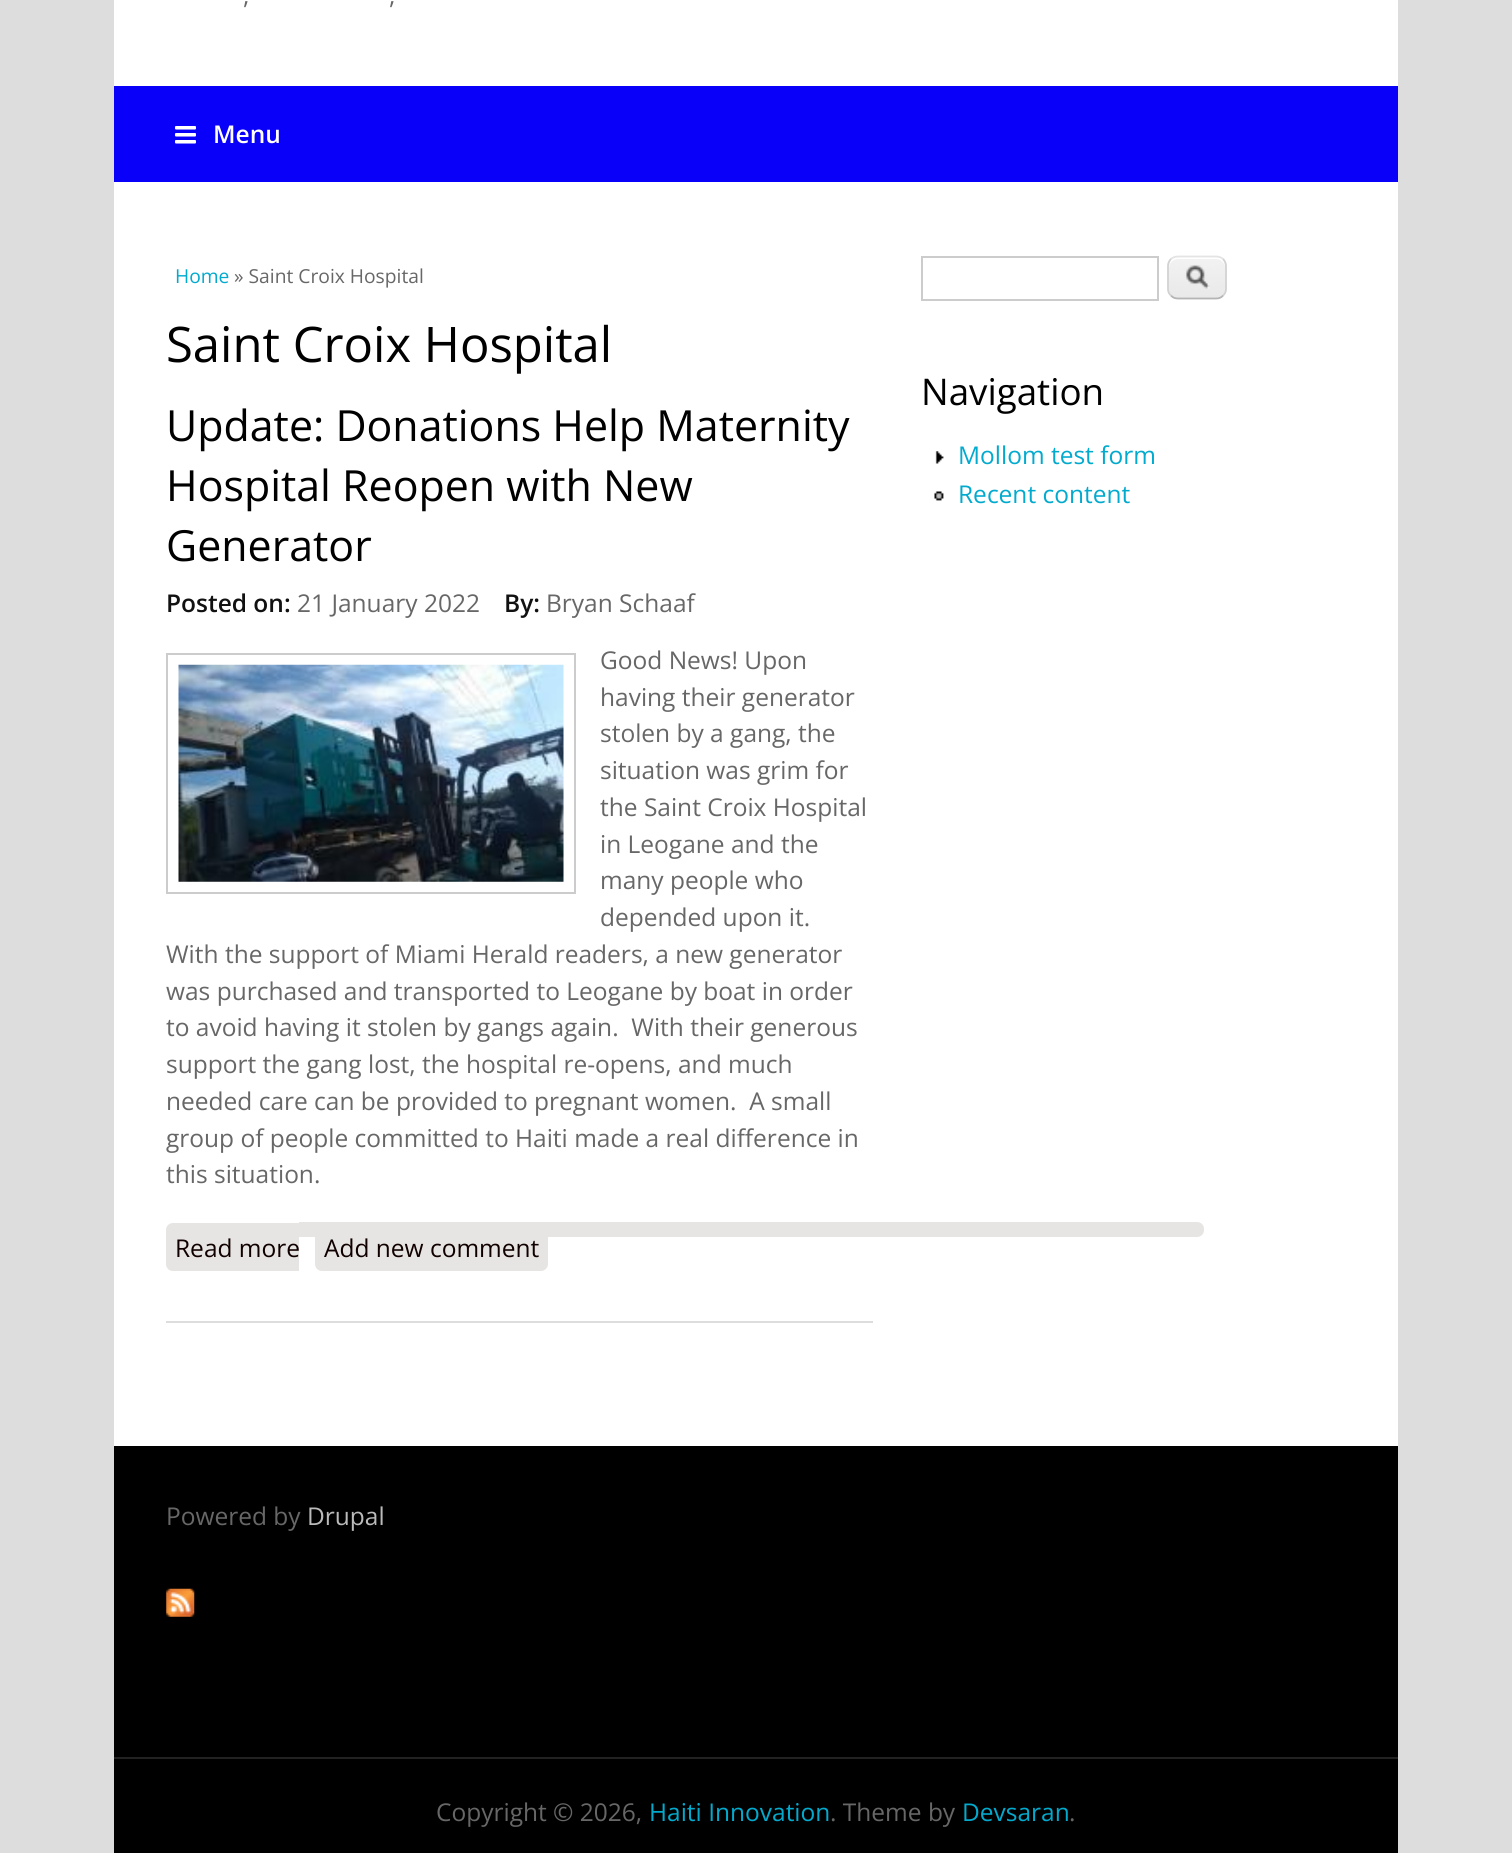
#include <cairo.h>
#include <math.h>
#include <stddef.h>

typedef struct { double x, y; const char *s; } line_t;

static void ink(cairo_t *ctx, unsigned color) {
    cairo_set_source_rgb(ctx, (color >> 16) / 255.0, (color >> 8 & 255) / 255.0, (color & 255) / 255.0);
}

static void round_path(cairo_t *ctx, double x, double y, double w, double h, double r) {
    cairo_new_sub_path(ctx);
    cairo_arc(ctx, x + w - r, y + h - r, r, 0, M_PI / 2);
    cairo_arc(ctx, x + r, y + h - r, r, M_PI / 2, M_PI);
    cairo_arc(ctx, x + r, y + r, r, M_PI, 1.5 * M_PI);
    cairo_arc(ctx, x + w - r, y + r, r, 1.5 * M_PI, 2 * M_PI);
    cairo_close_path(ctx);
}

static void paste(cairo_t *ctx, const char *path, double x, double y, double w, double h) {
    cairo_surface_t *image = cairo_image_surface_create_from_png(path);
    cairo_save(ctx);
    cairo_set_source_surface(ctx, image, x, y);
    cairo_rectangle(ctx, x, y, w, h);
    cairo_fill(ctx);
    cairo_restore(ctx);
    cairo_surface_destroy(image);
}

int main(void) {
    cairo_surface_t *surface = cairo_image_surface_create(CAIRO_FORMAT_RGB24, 1512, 1853);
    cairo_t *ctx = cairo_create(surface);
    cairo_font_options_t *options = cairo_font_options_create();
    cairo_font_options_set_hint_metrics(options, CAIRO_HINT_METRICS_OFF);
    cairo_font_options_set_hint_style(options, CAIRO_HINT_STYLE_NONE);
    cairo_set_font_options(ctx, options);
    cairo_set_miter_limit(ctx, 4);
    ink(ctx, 0xDDDDDD);
    cairo_paint(ctx);
    ink(ctx, 0xFFFFFF);
    cairo_rectangle(ctx, 114, 0, 1284, 1446);
    cairo_fill(ctx);
    cairo_select_font_face(ctx, "Open Sans", CAIRO_FONT_SLANT_NORMAL, CAIRO_FONT_WEIGHT_NORMAL);
    cairo_set_font_size(ctx, 24.5);
    ink(ctx, 0x676767);
    cairo_move_to(ctx, 243, 4);
    cairo_show_text(ctx, ",");
    cairo_move_to(ctx, 389, 4);
    cairo_show_text(ctx, ",");
    ink(ctx, 0x0800F9);
    cairo_rectangle(ctx, 114, 86, 1284, 96);
    cairo_fill(ctx);
    paste(ctx, "media/1.png", 175, 126, 21, 18);
    cairo_select_font_face(ctx, "Open Sans SemiBold", CAIRO_FONT_SLANT_NORMAL, CAIRO_FONT_WEIGHT_NORMAL);
    ink(ctx, 0xFFFFFF);
    cairo_move_to(ctx, 213, 143);
    cairo_show_text(ctx, "Menu");
    cairo_select_font_face(ctx, "Open Sans", CAIRO_FONT_SLANT_NORMAL, CAIRO_FONT_WEIGHT_NORMAL);
    cairo_set_font_size(ctx, 19.25);
    ink(ctx, 0x02AACE);
    cairo_move_to(ctx, 175, 283);
    cairo_show_text(ctx, "Home");
    ink(ctx, 0x676767);
    cairo_move_to(ctx, 234, 283);
    cairo_show_text(ctx, "» Saint Croix Hospital");
    cairo_set_font_size(ctx, 49);
    ink(ctx, 0x000000);
    cairo_move_to(ctx, 166, 362);
    cairo_show_text(ctx, "Saint Croix Hospital");
    ink(ctx, 0xDDDDDD);
    cairo_rectangle(ctx, 166, 1321, 707, 2);
    cairo_fill(ctx);
    cairo_set_font_size(ctx, 42.9);
    ink(ctx, 0x000000);
    {
        static const line_t items[] = {
            {166, 441, "Update: Donations Help Maternity"},
            {166, 501, "Hospital Reopen with New"},
            {166, 561, "Generator"},
        };
        for (size_t i = 0; i < sizeof items / sizeof *items; i++) {
            cairo_move_to(ctx, items[i].x, items[i].y);
            cairo_show_text(ctx, items[i].s);
        }
    }
    cairo_select_font_face(ctx, "Open Sans SemiBold", CAIRO_FONT_SLANT_NORMAL, CAIRO_FONT_WEIGHT_NORMAL);
    cairo_set_font_size(ctx, 24.5);
    ink(ctx, 0x111111);
    cairo_move_to(ctx, 166, 612);
    cairo_show_text(ctx, "Posted on:");
    cairo_select_font_face(ctx, "Open Sans", CAIRO_FONT_SLANT_NORMAL, CAIRO_FONT_WEIGHT_NORMAL);
    ink(ctx, 0x676767);
    cairo_move_to(ctx, 297, 612);
    cairo_show_text(ctx, "21 January 2022");
    cairo_select_font_face(ctx, "Open Sans SemiBold", CAIRO_FONT_SLANT_NORMAL, CAIRO_FONT_WEIGHT_NORMAL);
    ink(ctx, 0x111111);
    cairo_move_to(ctx, 504, 612);
    cairo_show_text(ctx, "By:");
    cairo_select_font_face(ctx, "Open Sans", CAIRO_FONT_SLANT_NORMAL, CAIRO_FONT_WEIGHT_NORMAL);
    ink(ctx, 0x676767);
    {
        static const line_t items[] = {
            {546, 612, "Bryan Schaaf"},
            {600, 669, "Good News! Upon"},
            {600, 706, "having their generator"},
            {600, 742, "stolen by a gang, the"},
            {600, 779, "situation was grim for"},
            {600, 816, "the Saint Croix Hospital"},
            {600, 853, "in Leogane and the"},
            {600, 889, "many people who"},
            {600, 926, "depended upon it."},
            {166, 963, "With the support of Miami Herald readers, a new generator"},
            {166, 1000, "was purchased and transported to Leogane by boat in order"},
            {166, 1036, "to avoid having it stolen by gangs again.  With their generous"},
            {166, 1073, "support the gang lost, the hospital re-opens, and much"},
            {166, 1110, "needed care can be provided to pregnant women.  A small"},
            {166, 1147, "group of people committed to Haiti made a real difference in"},
            {166, 1183, "this situation."},
        };
        for (size_t i = 0; i < sizeof items / sizeof *items; i++) {
            cairo_move_to(ctx, items[i].x, items[i].y);
            cairo_show_text(ctx, items[i].s);
        }
    }
    cairo_rectangle(ctx, 167, 654, 408, 239);
    ink(ctx, 0xCCCCCC);
    cairo_stroke(ctx);
    paste(ctx, "media/2.png", 178, 664, 386, 218);
    ink(ctx, 0xE7E5E3);
    cairo_new_path(ctx);
    cairo_move_to(ctx, 173, 1223);
    cairo_line_to(ctx, 299, 1223);
    cairo_line_to(ctx, 299, 1271);
    cairo_line_to(ctx, 173, 1271);
    cairo_curve_to(ctx, 169, 1271, 166, 1268, 166, 1264);
    cairo_line_to(ctx, 166, 1230);
    cairo_curve_to(ctx, 166, 1226, 169, 1223, 173, 1223);
    cairo_close_path(ctx);
    cairo_fill(ctx);
    ink(ctx, 0x100100);
    cairo_move_to(ctx, 175, 1257);
    cairo_show_text(ctx, "Read more");
    ink(ctx, 0xE7E5E3);
    cairo_new_path(ctx);
    cairo_move_to(ctx, 299, 1222);
    cairo_line_to(ctx, 1197, 1222);
    cairo_curve_to(ctx, 1201, 1222, 1204, 1225, 1204, 1229);
    cairo_line_to(ctx, 1204, 1230);
    cairo_curve_to(ctx, 1204, 1234, 1201, 1237, 1197, 1237);
    cairo_line_to(ctx, 299, 1237);
    cairo_close_path(ctx);
    cairo_fill(ctx);
    round_path(ctx, 315, 1223, 233, 48, 7);
    cairo_fill(ctx);
    ink(ctx, 0x100100);
    cairo_move_to(ctx, 324, 1257);
    cairo_show_text(ctx, "Add new comment");
    cairo_rectangle(ctx, 922, 257, 236, 43);
    ink(ctx, 0xCCCCCC);
    cairo_stroke(ctx);
    paste(ctx, "media/3.png", 1167, 257, 60, 42);
    ink(ctx, 0xFFFFFF);
    cairo_new_path(ctx);
    cairo_move_to(ctx, 1178, 259);
    cairo_line_to(ctx, 1216, 259);
    cairo_curve_to(ctx, 1221, 259, 1225, 263, 1225, 268);
    cairo_curve_to(ctx, 1225, 257, 1219, 257, 1210, 257);
    cairo_line_to(ctx, 1184, 257);
    cairo_curve_to(ctx, 1175, 257, 1169, 257, 1169, 268);
    cairo_curve_to(ctx, 1169, 263, 1173, 259, 1178, 259);
    cairo_close_path(ctx);
    cairo_fill(ctx);
    cairo_new_path(ctx);
    cairo_move_to(ctx, 1171, 259);
    cairo_curve_to(ctx, 1172.5, 257.5, 1175, 256.5, 1178, 256.5);
    cairo_line_to(ctx, 1216, 256.5);
    cairo_curve_to(ctx, 1219, 256.5, 1221.5, 257.5, 1223, 259);
    ink(ctx, 0xE4E4E4);
    cairo_set_line_width(ctx, 1.8);
    cairo_stroke(ctx);
    cairo_new_path(ctx);
    cairo_move_to(ctx, 1223, 259);
    cairo_curve_to(ctx, 1225, 261, 1226, 263.5, 1226, 266);
    cairo_line_to(ctx, 1226, 289);
    cairo_curve_to(ctx, 1226, 291.5, 1225, 294, 1223, 295.5);
    ink(ctx, 0xD2D2D2);
    cairo_stroke(ctx);
    cairo_new_path(ctx);
    cairo_move_to(ctx, 1223, 295.5);
    cairo_curve_to(ctx, 1221.5, 297.5, 1219, 298.5, 1216, 298.5);
    cairo_line_to(ctx, 1178, 298.5);
    cairo_curve_to(ctx, 1175, 298.5, 1172.5, 297.5, 1171, 295.5);
    ink(ctx, 0xB4B4B4);
    cairo_stroke(ctx);
    cairo_new_path(ctx);
    cairo_move_to(ctx, 1171, 295.5);
    cairo_curve_to(ctx, 1169, 294, 1168, 291.5, 1168, 289);
    cairo_line_to(ctx, 1168, 266);
    cairo_curve_to(ctx, 1168, 263.5, 1169, 261, 1171, 259);
    ink(ctx, 0xD2D2D2);
    cairo_stroke(ctx);
    cairo_set_font_size(ctx, 36.75);
    ink(ctx, 0x000000);
    cairo_move_to(ctx, 921, 405);
    cairo_show_text(ctx, "Navigation");
    paste(ctx, "media/4.png", 935, 451, 9, 13);
    cairo_set_font_size(ctx, 24.5);
    ink(ctx, 0x02AACE);
    cairo_move_to(ctx, 958, 464);
    cairo_show_text(ctx, "Mollom test form");
    paste(ctx, "media/5.png", 934, 491, 10, 10);
    cairo_move_to(ctx, 958, 503);
    cairo_show_text(ctx, "Recent content");
    ink(ctx, 0x000000);
    cairo_rectangle(ctx, 114, 1446, 1284, 311);
    cairo_fill(ctx);
    ink(ctx, 0x676767);
    cairo_move_to(ctx, 166, 1525);
    cairo_show_text(ctx, "Powered by");
    ink(ctx, 0xBBBBBB);
    cairo_move_to(ctx, 307, 1525);
    cairo_show_text(ctx, "Drupal");
    paste(ctx, "media/6.png", 166, 1588, 29, 29);
    ink(ctx, 0x000000);
    cairo_rectangle(ctx, 114, 1759, 1284, 94);
    cairo_fill(ctx);
    ink(ctx, 0x222222);
    cairo_rectangle(ctx, 114, 1757, 1284, 2);
    cairo_fill(ctx);
    ink(ctx, 0x676767);
    cairo_move_to(ctx, 436, 1821);
    cairo_show_text(ctx, "Copyright © 2026,");
    ink(ctx, 0x02AACE);
    cairo_move_to(ctx, 649, 1821);
    cairo_show_text(ctx, "Haiti Innovation");
    ink(ctx, 0x676767);
    cairo_move_to(ctx, 830, 1821);
    cairo_show_text(ctx, ". Theme by");
    ink(ctx, 0x02AACE);
    cairo_move_to(ctx, 962, 1821);
    cairo_show_text(ctx, "Devsaran");
    ink(ctx, 0x676767);
    cairo_move_to(ctx, 1069, 1821);
    cairo_show_text(ctx, ".");
    cairo_surface_write_to_png(surface, "image.png");
    cairo_font_options_destroy(options);
    cairo_destroy(ctx);
    cairo_surface_destroy(surface);
    return 0;
}
